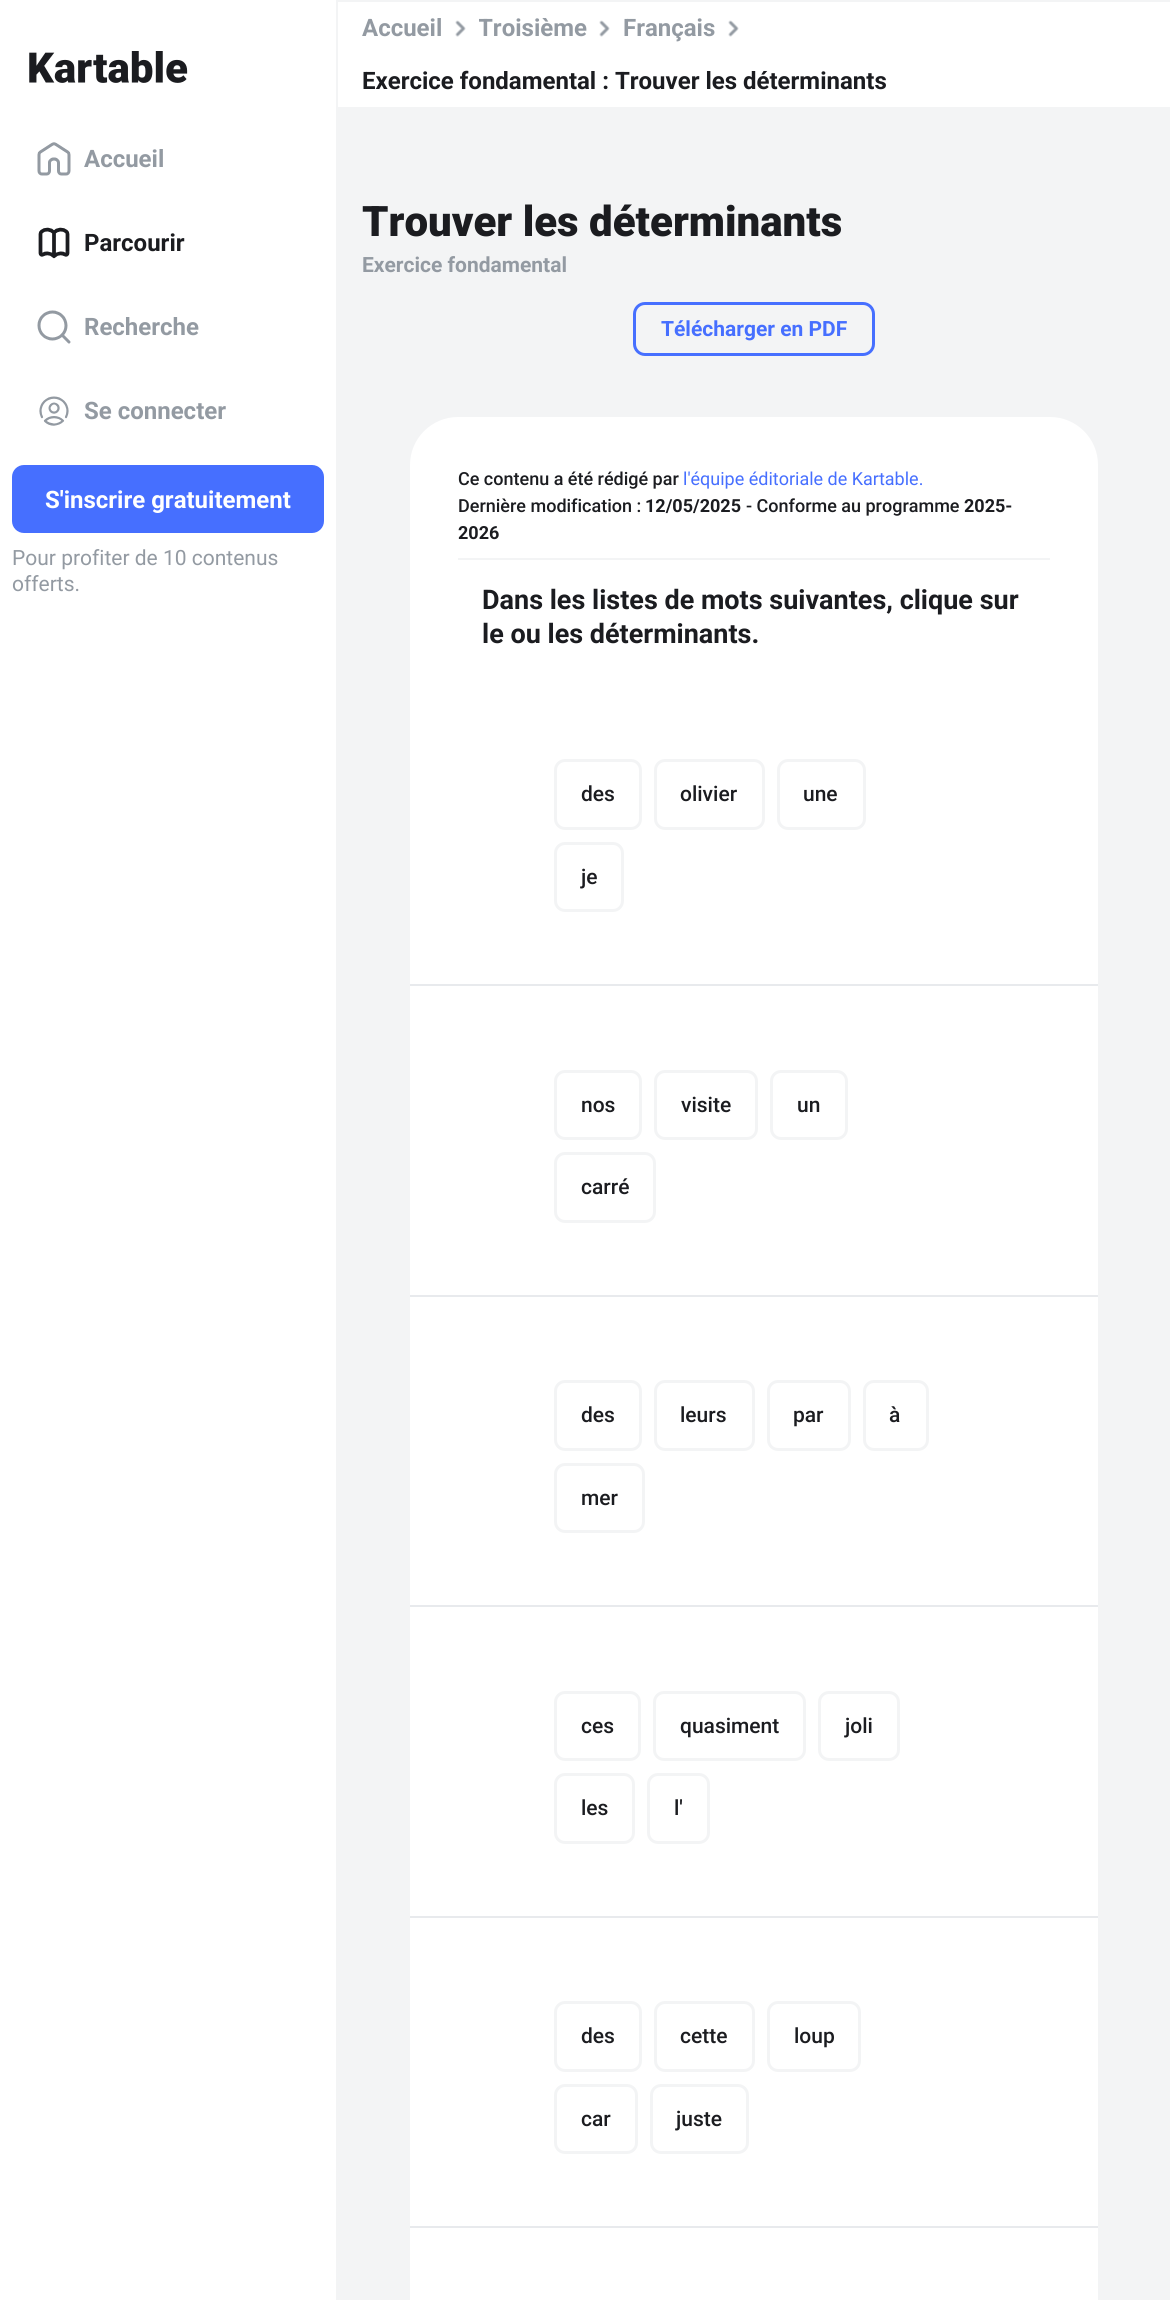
#include <cairo.h>
#include <math.h>
#include <stddef.h>


static void ink(cairo_t *ctx, unsigned color) {
    cairo_set_source_rgb(ctx, (color >> 16) / 255.0, (color >> 8 & 255) / 255.0, (color & 255) / 255.0);
}

static void round_path(cairo_t *ctx, double x, double y, double w, double h, double r) {
    cairo_new_sub_path(ctx);
    cairo_arc(ctx, x + w - r, y + h - r, r, 0, M_PI / 2);
    cairo_arc(ctx, x + r, y + h - r, r, M_PI / 2, M_PI);
    cairo_arc(ctx, x + r, y + r, r, M_PI, 1.5 * M_PI);
    cairo_arc(ctx, x + w - r, y + r, r, 1.5 * M_PI, 2 * M_PI);
    cairo_close_path(ctx);
}

static void paste(cairo_t *ctx, const char *path, double x, double y, double w, double h) {
    cairo_surface_t *image = cairo_image_surface_create_from_png(path);
    cairo_save(ctx);
    cairo_set_source_surface(ctx, image, x, y);
    cairo_rectangle(ctx, x, y, w, h);
    cairo_fill(ctx);
    cairo_restore(ctx);
    cairo_surface_destroy(image);
}

int main(void) {
    cairo_surface_t *surface = cairo_image_surface_create(CAIRO_FORMAT_RGB24, 1170, 2300);
    cairo_t *ctx = cairo_create(surface);
    cairo_font_options_t *options = cairo_font_options_create();
    cairo_font_options_set_hint_metrics(options, CAIRO_HINT_METRICS_OFF);
    cairo_font_options_set_hint_style(options, CAIRO_HINT_STYLE_NONE);
    cairo_set_font_options(ctx, options);
    cairo_set_miter_limit(ctx, 4);
    ink(ctx, 0xFFFFFF);
    cairo_paint(ctx);
    ink(ctx, 0xF3F4F5);
    cairo_rectangle(ctx, 336, 0, 2, 2300);
    cairo_fill(ctx);
    paste(ctx, "media/1.png", 29, 51, 159, 32);
    paste(ctx, "media/2.png", 37, 142, 34, 34);
    cairo_select_font_face(ctx, "Roboto", CAIRO_FONT_SLANT_NORMAL, CAIRO_FONT_WEIGHT_BOLD);
    cairo_set_font_size(ctx, 24);
    ink(ctx, 0x939AA2);
    cairo_move_to(ctx, 84, 167);
    cairo_show_text(ctx, "Accueil");
    paste(ctx, "media/3.png", 38, 227, 32, 32);
    ink(ctx, 0x1B1C20);
    cairo_move_to(ctx, 84, 251);
    cairo_show_text(ctx, "Parcourir");
    paste(ctx, "media/4.png", 37, 310, 34, 34);
    ink(ctx, 0x939AA2);
    cairo_move_to(ctx, 84, 335);
    cairo_show_text(ctx, "Recherche");
    paste(ctx, "media/5.png", 39, 396, 30, 30);
    cairo_move_to(ctx, 84, 419);
    cairo_show_text(ctx, "Se connecter");
    ink(ctx, 0x466FFF);
    round_path(ctx, 12, 465, 312, 68, 12);
    cairo_fill(ctx);
    ink(ctx, 0xFFFFFF);
    cairo_move_to(ctx, 45, 508);
    cairo_show_text(ctx, "S'inscrire gratuitement");
    cairo_select_font_face(ctx, "Roboto", CAIRO_FONT_SLANT_NORMAL, CAIRO_FONT_WEIGHT_NORMAL);
    cairo_set_font_size(ctx, 21);
    ink(ctx, 0x939AA2);
    cairo_move_to(ctx, 12, 565);
    cairo_show_text(ctx, "Pour profiter de 10 contenus");
    cairo_move_to(ctx, 12, 591);
    cairo_show_text(ctx, "offerts.");
    ink(ctx, 0xF3F4F5);
    cairo_rectangle(ctx, 338, 0, 832, 2);
    cairo_fill(ctx);
    cairo_select_font_face(ctx, "Roboto", CAIRO_FONT_SLANT_NORMAL, CAIRO_FONT_WEIGHT_BOLD);
    cairo_set_font_size(ctx, 24);
    ink(ctx, 0x939AA2);
    cairo_move_to(ctx, 362, 36);
    cairo_show_text(ctx, "Accueil");
    paste(ctx, "media/6.png", 455, 20, 11, 17);
    cairo_save(ctx);
    cairo_rectangle(ctx, 479, 2, 108, 52);
    cairo_clip(ctx);
    cairo_move_to(ctx, 478, 36);
    cairo_show_text(ctx, "Troisième");
    cairo_restore(ctx);
    paste(ctx, "media/6.png", 599, 20, 11, 17);
    cairo_move_to(ctx, 623, 36);
    cairo_show_text(ctx, "Français");
    paste(ctx, "media/6.png", 728, 20, 11, 17);
    ink(ctx, 0x1B1C20);
    cairo_move_to(ctx, 362, 89);
    cairo_show_text(ctx, "Exercice fondamental : Trouver les déterminants");
    ink(ctx, 0xF3F4F5);
    cairo_rectangle(ctx, 338, 107, 832, 2193);
    cairo_fill(ctx);
    cairo_select_font_face(ctx, "Roboto Black", CAIRO_FONT_SLANT_NORMAL, CAIRO_FONT_WEIGHT_NORMAL);
    cairo_set_font_size(ctx, 42);
    ink(ctx, 0x1B1C20);
    cairo_move_to(ctx, 362, 236);
    cairo_show_text(ctx, "Trouver les déterminants");
    cairo_select_font_face(ctx, "Roboto", CAIRO_FONT_SLANT_NORMAL, CAIRO_FONT_WEIGHT_BOLD);
    cairo_set_font_size(ctx, 21);
    ink(ctx, 0x939AA2);
    cairo_move_to(ctx, 362, 272);
    cairo_show_text(ctx, "Exercice fondamental");
    round_path(ctx, 634.5, 303.5, 239, 51, 10.5);
    ink(ctx, 0x466FFF);
    cairo_set_line_width(ctx, 3);
    cairo_stroke(ctx);
    cairo_move_to(ctx, 661, 336);
    cairo_show_text(ctx, "Télécharger en PDF");
    ink(ctx, 0xFFFFFF);
    cairo_new_path(ctx);
    cairo_move_to(ctx, 458, 417);
    cairo_line_to(ctx, 1050, 417);
    cairo_curve_to(ctx, 1076.5, 417, 1098, 438.5, 1098, 465);
    cairo_line_to(ctx, 1098, 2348);
    cairo_line_to(ctx, 410, 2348);
    cairo_line_to(ctx, 410, 465);
    cairo_curve_to(ctx, 410, 438.5, 431.5, 417, 458, 417);
    cairo_close_path(ctx);
    cairo_fill(ctx);
    ink(ctx, 0xF3F4F5);
    cairo_rectangle(ctx, 458, 558, 592, 2);
    cairo_fill(ctx);
    cairo_select_font_face(ctx, "Roboto Medium", CAIRO_FONT_SLANT_NORMAL, CAIRO_FONT_WEIGHT_NORMAL);
    cairo_set_font_size(ctx, 18);
    ink(ctx, 0x1B1C20);
    cairo_move_to(ctx, 458, 485);
    cairo_show_text(ctx, "Ce contenu a été rédigé par");
    cairo_select_font_face(ctx, "Roboto", CAIRO_FONT_SLANT_NORMAL, CAIRO_FONT_WEIGHT_NORMAL);
    ink(ctx, 0x466FFF);
    cairo_move_to(ctx, 683, 485);
    cairo_show_text(ctx, "l'équipe éditoriale de Kartable.");
    cairo_select_font_face(ctx, "Roboto Medium", CAIRO_FONT_SLANT_NORMAL, CAIRO_FONT_WEIGHT_NORMAL);
    ink(ctx, 0x1B1C20);
    cairo_move_to(ctx, 458, 512);
    cairo_show_text(ctx, "Dernière modification :");
    cairo_select_font_face(ctx, "Roboto", CAIRO_FONT_SLANT_NORMAL, CAIRO_FONT_WEIGHT_BOLD);
    cairo_move_to(ctx, 645, 512);
    cairo_show_text(ctx, "12/05/2025");
    cairo_select_font_face(ctx, "Roboto Medium", CAIRO_FONT_SLANT_NORMAL, CAIRO_FONT_WEIGHT_NORMAL);
    cairo_move_to(ctx, 746, 512);
    cairo_show_text(ctx, "- Conforme au programme");
    cairo_select_font_face(ctx, "Roboto", CAIRO_FONT_SLANT_NORMAL, CAIRO_FONT_WEIGHT_BOLD);
    cairo_move_to(ctx, 964, 512);
    cairo_show_text(ctx, "2025-");
    cairo_move_to(ctx, 458, 539);
    cairo_show_text(ctx, "2026");
    cairo_set_font_size(ctx, 27);
    cairo_move_to(ctx, 482, 609);
    cairo_show_text(ctx, "Dans les listes de mots suivantes, clique sur");
    cairo_move_to(ctx, 482, 643);
    cairo_show_text(ctx, "le ou les déterminants.");
    ink(ctx, 0xE8EAED);
    cairo_rectangle(ctx, 410, 984, 688, 2);
    cairo_fill(ctx);
    round_path(ctx, 555.5, 760.5, 85, 68, 9.5);
    ink(ctx, 0xF3F4F5);
    cairo_stroke(ctx);
    cairo_select_font_face(ctx, "Roboto Medium", CAIRO_FONT_SLANT_NORMAL, CAIRO_FONT_WEIGHT_NORMAL);
    cairo_set_font_size(ctx, 21);
    ink(ctx, 0x1B1C20);
    cairo_move_to(ctx, 581, 801);
    cairo_show_text(ctx, "des");
    round_path(ctx, 655.5, 760.5, 108, 68, 9.5);
    ink(ctx, 0xF3F4F5);
    cairo_stroke(ctx);
    ink(ctx, 0x1B1C20);
    cairo_move_to(ctx, 680, 801);
    cairo_show_text(ctx, "olivier");
    round_path(ctx, 778.5, 760.5, 86, 68, 9.5);
    ink(ctx, 0xF3F4F5);
    cairo_stroke(ctx);
    ink(ctx, 0x1B1C20);
    cairo_move_to(ctx, 803, 801);
    cairo_show_text(ctx, "une");
    round_path(ctx, 555.5, 843.5, 67, 67, 9.5);
    ink(ctx, 0xF3F4F5);
    cairo_stroke(ctx);
    ink(ctx, 0x1B1C20);
    cairo_move_to(ctx, 581, 884);
    cairo_show_text(ctx, "je");
    ink(ctx, 0xE8EAED);
    cairo_rectangle(ctx, 410, 1295, 688, 2);
    cairo_fill(ctx);
    round_path(ctx, 555.5, 1071.5, 85, 67, 9.5);
    ink(ctx, 0xF3F4F5);
    cairo_stroke(ctx);
    ink(ctx, 0x1B1C20);
    cairo_move_to(ctx, 581, 1112);
    cairo_show_text(ctx, "nos");
    round_path(ctx, 655.5, 1071.5, 101, 67, 9.5);
    ink(ctx, 0xF3F4F5);
    cairo_stroke(ctx);
    ink(ctx, 0x1B1C20);
    cairo_move_to(ctx, 681, 1112);
    cairo_show_text(ctx, "visite");
    round_path(ctx, 771.5, 1071.5, 75, 67, 9.5);
    ink(ctx, 0xF3F4F5);
    cairo_stroke(ctx);
    ink(ctx, 0x1B1C20);
    cairo_move_to(ctx, 797, 1112);
    cairo_show_text(ctx, "un");
    round_path(ctx, 555.5, 1153.5, 99, 68, 9.5);
    ink(ctx, 0xF3F4F5);
    cairo_stroke(ctx);
    ink(ctx, 0x1B1C20);
    cairo_move_to(ctx, 581, 1194);
    cairo_show_text(ctx, "carré");
    ink(ctx, 0xE8EAED);
    cairo_rectangle(ctx, 410, 1605, 688, 2);
    cairo_fill(ctx);
    round_path(ctx, 555.5, 1381.5, 85, 68, 9.5);
    ink(ctx, 0xF3F4F5);
    cairo_stroke(ctx);
    ink(ctx, 0x1B1C20);
    cairo_move_to(ctx, 581, 1422);
    cairo_show_text(ctx, "des");
    round_path(ctx, 655.5, 1381.5, 98, 68, 9.5);
    ink(ctx, 0xF3F4F5);
    cairo_stroke(ctx);
    ink(ctx, 0x1B1C20);
    cairo_move_to(ctx, 680, 1422);
    cairo_show_text(ctx, "leurs");
    round_path(ctx, 768.5, 1381.5, 81, 68, 9.5);
    ink(ctx, 0xF3F4F5);
    cairo_stroke(ctx);
    ink(ctx, 0x1B1C20);
    cairo_move_to(ctx, 793, 1422);
    cairo_show_text(ctx, "par");
    round_path(ctx, 864.5, 1381.5, 63, 68, 9.5);
    ink(ctx, 0xF3F4F5);
    cairo_stroke(ctx);
    ink(ctx, 0x1B1C20);
    cairo_move_to(ctx, 889, 1422);
    cairo_show_text(ctx, "à");
    round_path(ctx, 555.5, 1464.5, 88, 67, 9.5);
    ink(ctx, 0xF3F4F5);
    cairo_stroke(ctx);
    ink(ctx, 0x1B1C20);
    cairo_move_to(ctx, 581, 1505);
    cairo_show_text(ctx, "mer");
    ink(ctx, 0xE8EAED);
    cairo_rectangle(ctx, 410, 1916, 688, 2);
    cairo_fill(ctx);
    round_path(ctx, 555.5, 1692.5, 84, 67, 9.5);
    ink(ctx, 0xF3F4F5);
    cairo_stroke(ctx);
    ink(ctx, 0x1B1C20);
    cairo_move_to(ctx, 581, 1733);
    cairo_show_text(ctx, "ces");
    round_path(ctx, 654.5, 1692.5, 150, 67, 9.5);
    ink(ctx, 0xF3F4F5);
    cairo_stroke(ctx);
    ink(ctx, 0x1B1C20);
    cairo_move_to(ctx, 680, 1733);
    cairo_show_text(ctx, "quasiment");
    round_path(ctx, 819.5, 1692.5, 79, 67, 9.5);
    ink(ctx, 0xF3F4F5);
    cairo_stroke(ctx);
    ink(ctx, 0x1B1C20);
    cairo_move_to(ctx, 845, 1733);
    cairo_show_text(ctx, "joli");
    round_path(ctx, 555.5, 1774.5, 78, 68, 9.5);
    ink(ctx, 0xF3F4F5);
    cairo_stroke(ctx);
    ink(ctx, 0x1B1C20);
    cairo_move_to(ctx, 581, 1815);
    cairo_show_text(ctx, "les");
    round_path(ctx, 648.5, 1774.5, 60, 68, 9.5);
    ink(ctx, 0xF3F4F5);
    cairo_stroke(ctx);
    ink(ctx, 0x1B1C20);
    cairo_move_to(ctx, 674, 1815);
    cairo_show_text(ctx, "l'");
    ink(ctx, 0xE8EAED);
    cairo_rectangle(ctx, 410, 2226, 688, 2);
    cairo_fill(ctx);
    round_path(ctx, 555.5, 2002.5, 85, 68, 9.5);
    ink(ctx, 0xF3F4F5);
    cairo_stroke(ctx);
    ink(ctx, 0x1B1C20);
    cairo_move_to(ctx, 581, 2043);
    cairo_show_text(ctx, "des");
    round_path(ctx, 655.5, 2002.5, 98, 68, 9.5);
    ink(ctx, 0xF3F4F5);
    cairo_stroke(ctx);
    ink(ctx, 0x1B1C20);
    cairo_move_to(ctx, 680, 2043);
    cairo_show_text(ctx, "cette");
    round_path(ctx, 768.5, 2002.5, 91, 68, 9.5);
    ink(ctx, 0xF3F4F5);
    cairo_stroke(ctx);
    ink(ctx, 0x1B1C20);
    cairo_move_to(ctx, 794, 2043);
    cairo_show_text(ctx, "loup");
    round_path(ctx, 555.5, 2085.5, 81, 67, 9.5);
    ink(ctx, 0xF3F4F5);
    cairo_stroke(ctx);
    ink(ctx, 0x1B1C20);
    cairo_move_to(ctx, 581, 2126);
    cairo_show_text(ctx, "car");
    round_path(ctx, 651.5, 2085.5, 96, 67, 9.5);
    ink(ctx, 0xF3F4F5);
    cairo_stroke(ctx);
    ink(ctx, 0x1B1C20);
    cairo_move_to(ctx, 676, 2126);
    cairo_show_text(ctx, "juste");
    cairo_surface_write_to_png(surface, "image.png");
    cairo_font_options_destroy(options);
    cairo_destroy(ctx);
    cairo_surface_destroy(surface);
    return 0;
}
